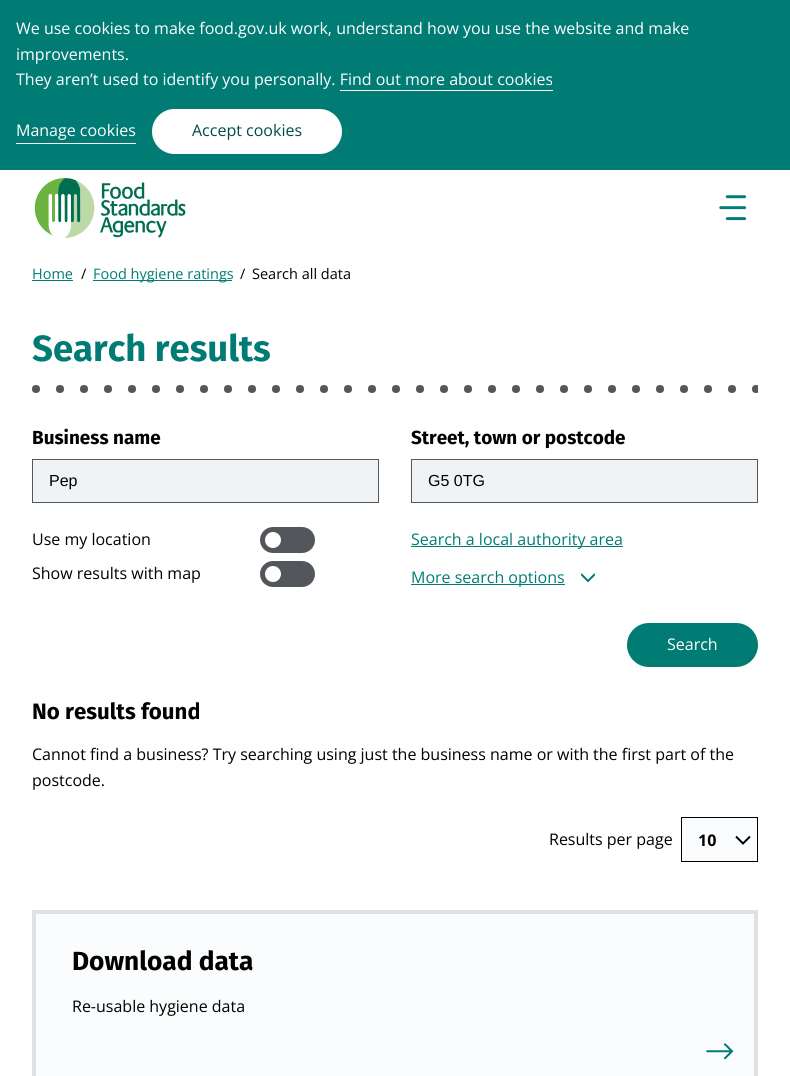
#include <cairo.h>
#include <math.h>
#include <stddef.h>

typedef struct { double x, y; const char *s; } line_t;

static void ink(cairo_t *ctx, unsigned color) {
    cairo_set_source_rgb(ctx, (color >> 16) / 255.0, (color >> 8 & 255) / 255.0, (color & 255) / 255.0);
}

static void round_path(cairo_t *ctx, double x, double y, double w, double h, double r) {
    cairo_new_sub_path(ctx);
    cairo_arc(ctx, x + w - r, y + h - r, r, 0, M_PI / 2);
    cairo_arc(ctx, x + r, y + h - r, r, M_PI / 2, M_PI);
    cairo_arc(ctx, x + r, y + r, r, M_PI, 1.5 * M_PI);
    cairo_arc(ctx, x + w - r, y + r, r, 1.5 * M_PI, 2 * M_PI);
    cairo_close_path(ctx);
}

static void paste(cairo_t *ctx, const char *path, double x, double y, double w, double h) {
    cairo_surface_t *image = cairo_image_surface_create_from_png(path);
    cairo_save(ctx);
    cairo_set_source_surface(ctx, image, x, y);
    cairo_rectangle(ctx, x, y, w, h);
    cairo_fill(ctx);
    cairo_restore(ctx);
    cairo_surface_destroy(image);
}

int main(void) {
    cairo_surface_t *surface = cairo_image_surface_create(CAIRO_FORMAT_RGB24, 790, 1076);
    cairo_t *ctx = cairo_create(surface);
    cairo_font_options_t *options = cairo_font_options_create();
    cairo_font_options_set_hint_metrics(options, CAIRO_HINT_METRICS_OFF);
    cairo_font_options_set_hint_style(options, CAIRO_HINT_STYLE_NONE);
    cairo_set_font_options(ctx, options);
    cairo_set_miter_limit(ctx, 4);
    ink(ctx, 0xFFFFFF);
    cairo_paint(ctx);
    ink(ctx, 0x007C75);
    cairo_rectangle(ctx, 0, 0, 790, 170);
    cairo_fill(ctx);
    cairo_select_font_face(ctx, "Open Sans", CAIRO_FONT_SLANT_NORMAL, CAIRO_FONT_WEIGHT_NORMAL);
    cairo_set_font_size(ctx, 16);
    ink(ctx, 0xFFFFFF);
    {
        static const line_t items[] = {
            {16, 34, "We use cookies to make food.gov.uk work, understand how you use the website and make"},
            {16, 60, "improvements."},
            {16, 85, "They aren’t used to identify you personally. Find out more about cookies"},
        };
        for (size_t i = 0; i < sizeof items / sizeof *items; i++) {
            cairo_move_to(ctx, items[i].x, items[i].y);
            cairo_show_text(ctx, items[i].s);
        }
    }
    cairo_rectangle(ctx, 340, 90, 213, 1);
    cairo_fill(ctx);
    cairo_rectangle(ctx, 16, 143, 120, 1);
    cairo_fill(ctx);
    cairo_move_to(ctx, 16, 136);
    cairo_show_text(ctx, "Manage cookies");
    round_path(ctx, 152, 109, 190, 45, 22.5);
    cairo_fill(ctx);
    ink(ctx, 0x014B4C);
    cairo_move_to(ctx, 192, 136);
    cairo_show_text(ctx, "Accept cookies");
    paste(ctx, "media/1.png", 34, 178, 152, 60);
    paste(ctx, "media/2.png", 719, 195, 28, 26);
    cairo_set_font_size(ctx, 14.5);
    ink(ctx, 0x007C75);
    cairo_move_to(ctx, 32, 279);
    cairo_show_text(ctx, "Home");
    cairo_rectangle(ctx, 32, 280, 41, 1);
    cairo_fill(ctx);
    ink(ctx, 0x000000);
    cairo_move_to(ctx, 81, 279);
    cairo_show_text(ctx, "/");
    ink(ctx, 0x007C75);
    cairo_rectangle(ctx, 93, 280, 139, 1);
    cairo_fill(ctx);
    cairo_move_to(ctx, 93, 279);
    cairo_show_text(ctx, "Food hygiene ratings");
    ink(ctx, 0x000000);
    cairo_move_to(ctx, 240, 279);
    cairo_show_text(ctx, "/");
    cairo_move_to(ctx, 252, 279);
    cairo_show_text(ctx, "Search all data");
    cairo_select_font_face(ctx, "Fira Sans", CAIRO_FONT_SLANT_NORMAL, CAIRO_FONT_WEIGHT_BOLD);
    cairo_set_font_size(ctx, 36.5);
    ink(ctx, 0x007C75);
    cairo_move_to(ctx, 32, 361);
    cairo_show_text(ctx, "Search results");
    paste(ctx, "media/3.png", 32, 385, 726, 8);
    cairo_set_font_size(ctx, 18.9);
    ink(ctx, 0x000000);
    cairo_move_to(ctx, 32, 444);
    cairo_show_text(ctx, "Business name");
    ink(ctx, 0xF0F3F5);
    cairo_rectangle(ctx, 32.5, 459.5, 346, 43);
    cairo_fill_preserve(ctx);
    ink(ctx, 0x53565A);
    cairo_set_line_width(ctx, 1);
    cairo_stroke(ctx);
    cairo_select_font_face(ctx, "Liberation Sans", CAIRO_FONT_SLANT_NORMAL, CAIRO_FONT_WEIGHT_NORMAL);
    cairo_set_font_size(ctx, 16);
    ink(ctx, 0x000000);
    cairo_move_to(ctx, 49, 486);
    cairo_show_text(ctx, "Pep");
    cairo_select_font_face(ctx, "Fira Sans", CAIRO_FONT_SLANT_NORMAL, CAIRO_FONT_WEIGHT_BOLD);
    cairo_set_font_size(ctx, 18.9);
    cairo_move_to(ctx, 411, 444);
    cairo_show_text(ctx, "Street, town or postcode");
    ink(ctx, 0xF0F3F5);
    cairo_rectangle(ctx, 411.5, 459.5, 346, 43);
    cairo_fill_preserve(ctx);
    ink(ctx, 0x53565A);
    cairo_stroke(ctx);
    cairo_select_font_face(ctx, "Liberation Sans", CAIRO_FONT_SLANT_NORMAL, CAIRO_FONT_WEIGHT_NORMAL);
    cairo_set_font_size(ctx, 16);
    ink(ctx, 0x000000);
    cairo_move_to(ctx, 428, 486);
    cairo_show_text(ctx, "G5 0TG");
    cairo_select_font_face(ctx, "Open Sans", CAIRO_FONT_SLANT_NORMAL, CAIRO_FONT_WEIGHT_NORMAL);
    cairo_move_to(ctx, 32, 545);
    cairo_show_text(ctx, "Use my location");
    ink(ctx, 0x53565A);
    round_path(ctx, 260, 527, 55, 26, 13);
    cairo_fill(ctx);
    ink(ctx, 0xFFFFFF);
    cairo_arc(ctx, 273, 540, 8, 0, 2 * M_PI);
    cairo_fill(ctx);
    ink(ctx, 0x000000);
    cairo_move_to(ctx, 32, 579);
    cairo_show_text(ctx, "Show results with map");
    ink(ctx, 0x53565A);
    round_path(ctx, 260, 561, 55, 26, 13);
    cairo_fill(ctx);
    ink(ctx, 0xFFFFFF);
    cairo_arc(ctx, 273, 574, 8, 0, 2 * M_PI);
    cairo_fill(ctx);
    ink(ctx, 0x007C75);
    cairo_rectangle(ctx, 411, 546, 212, 1);
    cairo_fill(ctx);
    cairo_move_to(ctx, 411, 545);
    cairo_show_text(ctx, "Search a local authority area");
    cairo_rectangle(ctx, 411, 584, 154, 1);
    cairo_fill(ctx);
    cairo_move_to(ctx, 411, 583);
    cairo_show_text(ctx, "More search options");
    cairo_save(ctx);
    cairo_rectangle(ctx, 581, 573, 14, 10);
    cairo_clip(ctx);
    cairo_new_path(ctx);
    cairo_move_to(ctx, 581, 574);
    cairo_line_to(ctx, 588, 581);
    cairo_line_to(ctx, 595, 574);
    cairo_set_line_width(ctx, 2);
    cairo_stroke(ctx);
    cairo_restore(ctx);
    round_path(ctx, 627, 623, 131, 44, 22);
    cairo_fill(ctx);
    ink(ctx, 0xFFFFFF);
    cairo_move_to(ctx, 667, 650);
    cairo_show_text(ctx, "Search");
    cairo_select_font_face(ctx, "Fira Sans", CAIRO_FONT_SLANT_NORMAL, CAIRO_FONT_WEIGHT_BOLD);
    cairo_set_font_size(ctx, 22.25);
    ink(ctx, 0x000000);
    cairo_move_to(ctx, 32, 719);
    cairo_show_text(ctx, "No results found");
    cairo_select_font_face(ctx, "Open Sans", CAIRO_FONT_SLANT_NORMAL, CAIRO_FONT_WEIGHT_NORMAL);
    cairo_set_font_size(ctx, 16);
    {
        static const line_t items[] = {
            {32, 760, "Cannot find a business? Try searching using just the business name or with the first part of the"},
            {32, 786, "postcode."},
            {549, 845, "Results per page"},
        };
        for (size_t i = 0; i < sizeof items / sizeof *items; i++) {
            cairo_move_to(ctx, items[i].x, items[i].y);
            cairo_show_text(ctx, items[i].s);
        }
    }
    ink(ctx, 0xFAFCFD);
    cairo_rectangle(ctx, 682, 818, 75, 43);
    cairo_fill(ctx);
    cairo_new_path(ctx);
    cairo_move_to(ctx, 736, 836.5);
    cairo_line_to(ctx, 743, 843.5);
    cairo_line_to(ctx, 750, 836.5);
    ink(ctx, 0x000000);
    cairo_set_line_width(ctx, 2);
    cairo_stroke(ctx);
    cairo_rectangle(ctx, 681.5, 817.5, 76, 44);
    cairo_set_line_width(ctx, 1);
    cairo_stroke(ctx);
    cairo_select_font_face(ctx, "Open Sans", CAIRO_FONT_SLANT_NORMAL, CAIRO_FONT_WEIGHT_BOLD);
    cairo_move_to(ctx, 698, 846);
    cairo_show_text(ctx, "10");
    ink(ctx, 0xFAFCFD);
    cairo_rectangle(ctx, 34, 912, 722, 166);
    cairo_fill_preserve(ctx);
    ink(ctx, 0xDEE2E5);
    cairo_set_line_width(ctx, 4);
    cairo_stroke(ctx);
    cairo_select_font_face(ctx, "Fira Sans", CAIRO_FONT_SLANT_NORMAL, CAIRO_FONT_WEIGHT_BOLD);
    cairo_set_font_size(ctx, 26.25);
    ink(ctx, 0x000000);
    cairo_move_to(ctx, 72, 970);
    cairo_show_text(ctx, "Download data");
    cairo_select_font_face(ctx, "Open Sans", CAIRO_FONT_SLANT_NORMAL, CAIRO_FONT_WEIGHT_NORMAL);
    cairo_set_font_size(ctx, 16);
    cairo_move_to(ctx, 72, 1012);
    cairo_show_text(ctx, "Re-usable hygiene data");
    paste(ctx, "media/4.png", 706, 1043, 28, 17);
    cairo_surface_write_to_png(surface, "image.png");
    cairo_font_options_destroy(options);
    cairo_destroy(ctx);
    cairo_surface_destroy(surface);
    return 0;
}
